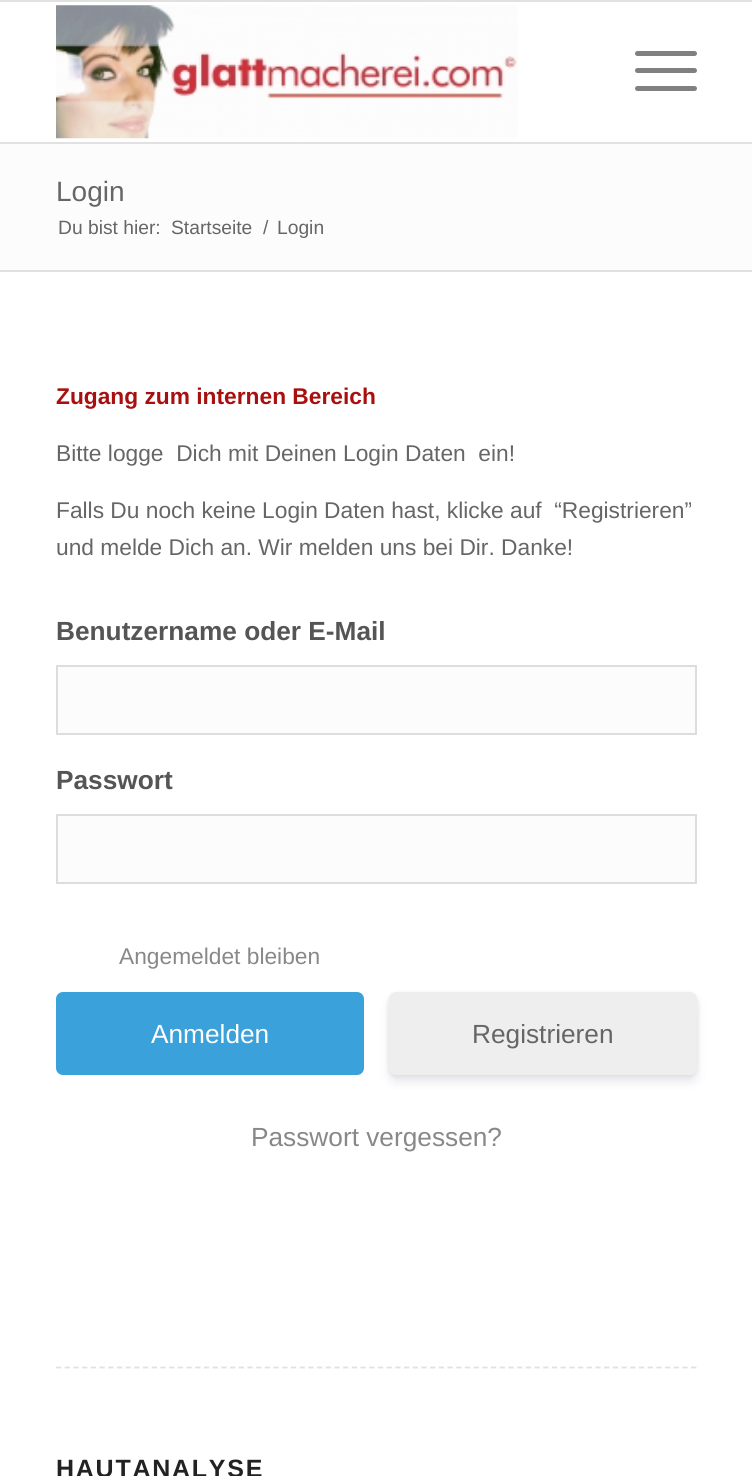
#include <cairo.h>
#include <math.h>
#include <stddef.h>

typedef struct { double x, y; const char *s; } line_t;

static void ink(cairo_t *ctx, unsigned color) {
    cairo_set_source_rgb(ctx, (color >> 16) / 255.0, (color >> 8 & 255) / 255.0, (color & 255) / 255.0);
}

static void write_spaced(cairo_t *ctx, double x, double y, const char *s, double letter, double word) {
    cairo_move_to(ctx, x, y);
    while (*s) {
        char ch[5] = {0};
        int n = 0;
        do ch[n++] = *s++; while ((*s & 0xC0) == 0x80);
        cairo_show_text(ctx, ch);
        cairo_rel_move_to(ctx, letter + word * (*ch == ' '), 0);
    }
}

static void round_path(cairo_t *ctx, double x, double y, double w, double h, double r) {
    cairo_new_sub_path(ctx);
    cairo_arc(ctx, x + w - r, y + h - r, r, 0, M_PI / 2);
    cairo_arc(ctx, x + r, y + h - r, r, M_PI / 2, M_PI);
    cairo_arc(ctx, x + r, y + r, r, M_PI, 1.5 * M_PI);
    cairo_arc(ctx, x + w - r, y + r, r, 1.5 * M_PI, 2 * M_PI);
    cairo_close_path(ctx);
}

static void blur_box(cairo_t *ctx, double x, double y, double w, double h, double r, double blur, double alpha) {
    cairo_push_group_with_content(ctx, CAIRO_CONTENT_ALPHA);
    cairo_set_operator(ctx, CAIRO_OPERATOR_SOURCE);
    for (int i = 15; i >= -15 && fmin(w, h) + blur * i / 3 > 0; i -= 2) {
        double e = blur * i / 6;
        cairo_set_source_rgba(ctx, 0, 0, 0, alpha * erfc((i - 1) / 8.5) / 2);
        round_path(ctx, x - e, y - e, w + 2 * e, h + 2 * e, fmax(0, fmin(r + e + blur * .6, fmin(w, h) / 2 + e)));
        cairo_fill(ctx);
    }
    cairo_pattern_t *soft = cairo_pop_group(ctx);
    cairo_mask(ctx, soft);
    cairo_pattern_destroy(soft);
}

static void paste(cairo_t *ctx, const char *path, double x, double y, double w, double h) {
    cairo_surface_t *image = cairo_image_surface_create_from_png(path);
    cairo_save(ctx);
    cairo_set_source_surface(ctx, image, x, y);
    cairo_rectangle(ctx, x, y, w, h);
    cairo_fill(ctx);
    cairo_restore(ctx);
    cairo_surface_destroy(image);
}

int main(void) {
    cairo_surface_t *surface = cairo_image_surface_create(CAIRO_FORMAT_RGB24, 752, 1476);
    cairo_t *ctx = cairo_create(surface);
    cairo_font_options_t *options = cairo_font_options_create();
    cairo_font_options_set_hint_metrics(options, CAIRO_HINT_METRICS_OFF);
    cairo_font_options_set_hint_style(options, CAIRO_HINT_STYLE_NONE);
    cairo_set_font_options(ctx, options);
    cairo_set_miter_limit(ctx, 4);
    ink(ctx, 0xFFFFFF);
    cairo_paint(ctx);
    ink(ctx, 0xE1E1E1);
    cairo_rectangle(ctx, 0, 0, 752, 2);
    cairo_fill(ctx);
    cairo_rectangle(ctx, 0, 142, 752, 2);
    cairo_fill(ctx);
    paste(ctx, "media/1.png", 56, 5, 462, 134);
    ink(ctx, 0x808080);
    round_path(ctx, 635, 68, 62, 5, 2.5);
    cairo_fill(ctx);
    round_path(ctx, 635, 51, 62, 5, 2.5);
    cairo_fill(ctx);
    round_path(ctx, 635, 86, 62, 5, 2.5);
    cairo_fill(ctx);
    ink(ctx, 0xFCFCFC);
    cairo_rectangle(ctx, 0, 144, 752, 126);
    cairo_fill(ctx);
    cairo_select_font_face(ctx, "Liberation Sans", CAIRO_FONT_SLANT_NORMAL, CAIRO_FONT_WEIGHT_NORMAL);
    cairo_set_font_size(ctx, 28);
    ink(ctx, 0x666666);
    cairo_move_to(ctx, 56, 201);
    cairo_show_text(ctx, "Login");
    cairo_set_font_size(ctx, 19.25);
    {
        static const line_t items[] = {
            {58, 234, "Du bist hier:"},
            {171, 234, "Startseite"},
            {263, 234, "/"},
            {277, 234, "Login"},
        };
        for (size_t i = 0; i < sizeof items / sizeof *items; i++) {
            cairo_move_to(ctx, items[i].x, items[i].y);
            cairo_show_text(ctx, items[i].s);
        }
    }
    ink(ctx, 0xE1E1E1);
    cairo_rectangle(ctx, 0, 270, 752, 2);
    cairo_fill(ctx);
    cairo_select_font_face(ctx, "Liberation Sans", CAIRO_FONT_SLANT_NORMAL, CAIRO_FONT_WEIGHT_BOLD);
    cairo_set_font_size(ctx, 22.75);
    ink(ctx, 0xA81010);
    cairo_move_to(ctx, 56, 404);
    cairo_show_text(ctx, "Zugang zum internen Bereich");
    cairo_select_font_face(ctx, "Liberation Sans", CAIRO_FONT_SLANT_NORMAL, CAIRO_FONT_WEIGHT_NORMAL);
    ink(ctx, 0x666666);
    {
        static const line_t items[] = {
            {56, 461, "Bitte logge  Dich mit Deinen Login Daten  ein!"},
            {56, 518, "Falls Du noch keine Login Daten hast, klicke auf  “Registrieren”"},
            {56, 555, "und melde Dich an. Wir melden uns bei Dir. Danke!"},
        };
        for (size_t i = 0; i < sizeof items / sizeof *items; i++) {
            cairo_move_to(ctx, items[i].x, items[i].y);
            cairo_show_text(ctx, items[i].s);
        }
    }
    cairo_select_font_face(ctx, "Liberation Sans", CAIRO_FONT_SLANT_NORMAL, CAIRO_FONT_WEIGHT_BOLD);
    cairo_set_font_size(ctx, 26.25);
    ink(ctx, 0x555555);
    cairo_move_to(ctx, 56, 640);
    cairo_show_text(ctx, "Benutzername oder E-Mail");
    ink(ctx, 0xFCFCFC);
    cairo_rectangle(ctx, 57, 666, 639, 68);
    cairo_fill_preserve(ctx);
    ink(ctx, 0xDDDDDD);
    cairo_stroke(ctx);
    ink(ctx, 0x555555);
    cairo_move_to(ctx, 56, 789);
    cairo_show_text(ctx, "Passwort");
    ink(ctx, 0xFCFCFC);
    cairo_rectangle(ctx, 57, 815, 639, 68);
    cairo_fill_preserve(ctx);
    ink(ctx, 0xDDDDDD);
    cairo_stroke(ctx);
    cairo_select_font_face(ctx, "Liberation Sans", CAIRO_FONT_SLANT_NORMAL, CAIRO_FONT_WEIGHT_NORMAL);
    cairo_set_font_size(ctx, 22.75);
    ink(ctx, 0x888888);
    cairo_move_to(ctx, 119, 964);
    cairo_show_text(ctx, "Angemeldet bleiben");
    ink(ctx, 0x3BA1DA);
    round_path(ctx, 56, 992, 308, 83, 7);
    cairo_fill(ctx);
    cairo_set_font_size(ctx, 26.25);
    ink(ctx, 0xFFFFFF);
    cairo_move_to(ctx, 151, 1043);
    cairo_show_text(ctx, "Anmelden");
    ink(ctx, 0x000000);
    blur_box(ctx, 389, 994, 308, 82, 7, 2.5, 0.08);
    ink(ctx, 0x32325D);
    blur_box(ctx, 389, 999, 308, 83, 7, 5, 0.11);
    ink(ctx, 0xEEEEEE);
    round_path(ctx, 389, 992, 308, 83, 7);
    cairo_fill(ctx);
    ink(ctx, 0x666666);
    cairo_move_to(ctx, 472, 1043);
    cairo_show_text(ctx, "Registrieren");
    ink(ctx, 0x888888);
    cairo_move_to(ctx, 251, 1146);
    cairo_show_text(ctx, "Passwort vergessen?");
    cairo_new_path(ctx);
    cairo_move_to(ctx, 56, 1367.5);
    cairo_line_to(ctx, 696.5, 1367.5);
    ink(ctx, 0xE1E1E1);
    cairo_set_line_width(ctx, 1.8);
    cairo_set_dash(ctx, (double[]){5.25, 3.45}, 2, 0);
    cairo_stroke(ctx);
    cairo_select_font_face(ctx, "Liberation Sans", CAIRO_FONT_SLANT_NORMAL, CAIRO_FONT_WEIGHT_BOLD);
    cairo_set_font_size(ctx, 25);
    ink(ctx, 0x222222);
    write_spaced(ctx, 56, 1477, "HAUTANALYSE", 1.75, 0);
    cairo_surface_write_to_png(surface, "image.png");
    cairo_font_options_destroy(options);
    cairo_destroy(ctx);
    cairo_surface_destroy(surface);
    return 0;
}
